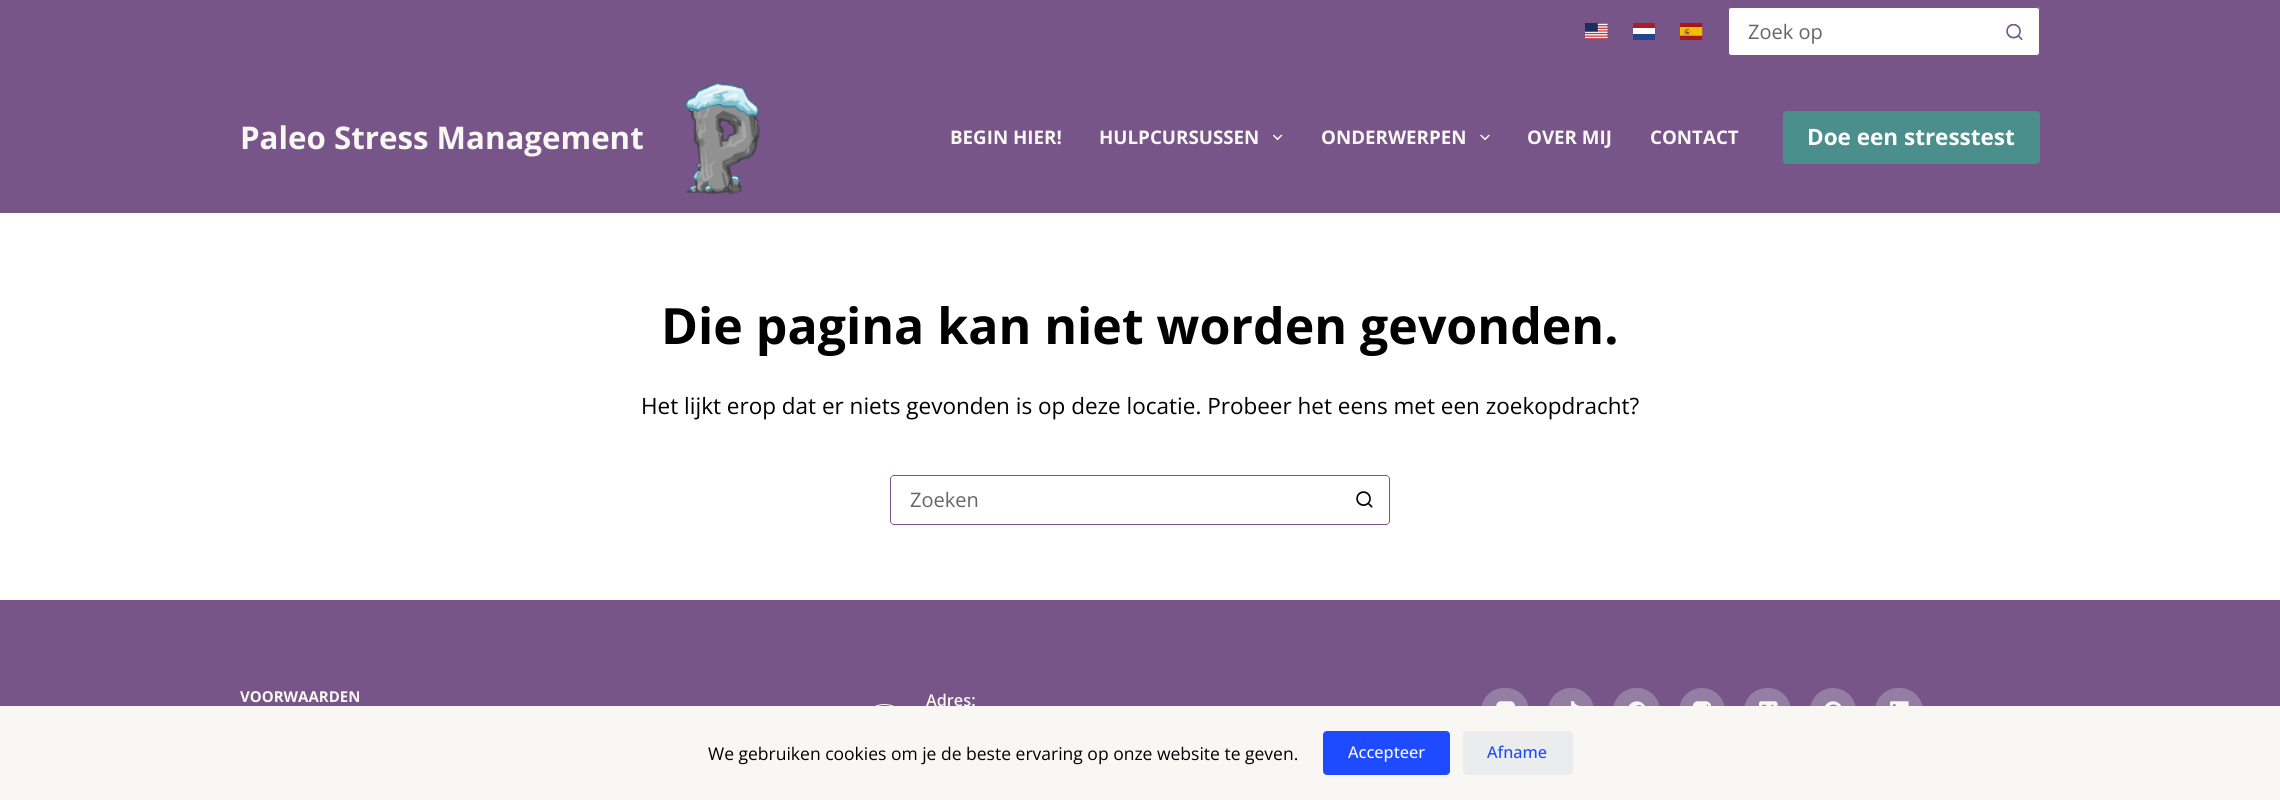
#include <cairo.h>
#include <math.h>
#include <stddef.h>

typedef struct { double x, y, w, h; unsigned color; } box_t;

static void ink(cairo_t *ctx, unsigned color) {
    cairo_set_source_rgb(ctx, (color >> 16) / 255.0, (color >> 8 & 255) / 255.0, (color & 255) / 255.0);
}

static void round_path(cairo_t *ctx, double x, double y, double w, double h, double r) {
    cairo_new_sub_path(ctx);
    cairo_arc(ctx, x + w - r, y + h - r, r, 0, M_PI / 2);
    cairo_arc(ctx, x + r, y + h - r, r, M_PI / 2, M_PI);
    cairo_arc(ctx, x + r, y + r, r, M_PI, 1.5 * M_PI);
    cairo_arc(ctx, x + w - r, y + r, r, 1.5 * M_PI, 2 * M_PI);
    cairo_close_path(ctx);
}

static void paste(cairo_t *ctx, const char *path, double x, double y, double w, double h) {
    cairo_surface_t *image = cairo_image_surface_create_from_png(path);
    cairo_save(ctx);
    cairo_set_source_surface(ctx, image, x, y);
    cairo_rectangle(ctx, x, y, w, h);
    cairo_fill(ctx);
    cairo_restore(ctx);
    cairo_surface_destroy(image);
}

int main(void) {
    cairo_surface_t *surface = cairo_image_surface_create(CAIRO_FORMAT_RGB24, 2280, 800);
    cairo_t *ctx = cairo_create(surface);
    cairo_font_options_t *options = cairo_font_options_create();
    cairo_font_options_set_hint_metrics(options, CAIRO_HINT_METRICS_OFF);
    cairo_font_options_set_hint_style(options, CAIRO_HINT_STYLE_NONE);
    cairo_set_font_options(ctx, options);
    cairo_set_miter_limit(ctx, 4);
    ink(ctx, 0xFFFFFF);
    cairo_paint(ctx);
    ink(ctx, 0x785589);
    cairo_rectangle(ctx, 0, 0, 2280, 213);
    cairo_fill(ctx);
    paste(ctx, "media/1.png", 1585, 23, 23, 17);
    {
        static const box_t items[] = {
            {1633, 23, 22, 5, 0xAE1C28},
            {1633, 28, 22, 6, 0xFFFFFF},
            {1633, 34, 22, 6, 0x21468B},
        };
        for (size_t i = 0; i < sizeof items / sizeof *items; i++) {
            ink(ctx, items[i].color);
            cairo_rectangle(ctx, items[i].x, items[i].y, items[i].w, items[i].h);
            cairo_fill(ctx);
        }
    }
    paste(ctx, "media/2.png", 1680, 23, 23, 17);
    ink(ctx, 0xFFFFFF);
    cairo_new_path(ctx);
    cairo_move_to(ctx, 1732, 6);
    cairo_line_to(ctx, 1990, 6);
    cairo_line_to(ctx, 1990, 56);
    cairo_line_to(ctx, 1732, 56);
    cairo_curve_to(ctx, 1730, 56, 1728, 54, 1728, 52);
    cairo_line_to(ctx, 1728, 10);
    cairo_curve_to(ctx, 1728, 8, 1730, 6, 1732, 6);
    cairo_close_path(ctx);
    cairo_fill(ctx);
    ink(ctx, 0x785589);
    cairo_set_fill_rule(ctx, CAIRO_FILL_RULE_EVEN_ODD);
    cairo_new_path(ctx);
    cairo_move_to(ctx, 1731, 6);
    cairo_line_to(ctx, 1990, 6);
    cairo_line_to(ctx, 1990, 56);
    cairo_line_to(ctx, 1731, 56);
    cairo_curve_to(ctx, 1729, 56, 1728, 55, 1728, 52);
    cairo_line_to(ctx, 1728, 10);
    cairo_curve_to(ctx, 1728, 8, 1729, 6, 1731, 6);
    cairo_close_path(ctx);
    cairo_move_to(ctx, 1731, 8);
    cairo_line_to(ctx, 1990, 8);
    cairo_line_to(ctx, 1990, 55);
    cairo_line_to(ctx, 1731, 55);
    cairo_curve_to(ctx, 1730, 55, 1729, 54, 1729, 52);
    cairo_line_to(ctx, 1729, 10);
    cairo_curve_to(ctx, 1729, 9, 1730, 8, 1731, 8);
    cairo_close_path(ctx);
    cairo_fill(ctx);
    cairo_select_font_face(ctx, "Open Sans", CAIRO_FONT_SLANT_NORMAL, CAIRO_FONT_WEIGHT_NORMAL);
    cairo_set_font_size(ctx, 20);
    ink(ctx, 0x666666);
    cairo_move_to(ctx, 1748, 39);
    cairo_show_text(ctx, "Zoek op");
    ink(ctx, 0xFFFFFF);
    cairo_new_path(ctx);
    cairo_move_to(ctx, 1990, 6);
    cairo_line_to(ctx, 2036, 6);
    cairo_curve_to(ctx, 2038, 6, 2040, 8, 2040, 10);
    cairo_line_to(ctx, 2040, 52);
    cairo_curve_to(ctx, 2040, 54, 2038, 56, 2036, 56);
    cairo_line_to(ctx, 1990, 56);
    cairo_close_path(ctx);
    cairo_fill(ctx);
    ink(ctx, 0x785589);
    cairo_new_path(ctx);
    cairo_move_to(ctx, 1990, 6);
    cairo_line_to(ctx, 2036, 6);
    cairo_curve_to(ctx, 2038, 6, 2040, 8, 2040, 10);
    cairo_line_to(ctx, 2040, 52);
    cairo_curve_to(ctx, 2040, 55, 2038, 56, 2036, 56);
    cairo_line_to(ctx, 1990, 56);
    cairo_close_path(ctx);
    cairo_move_to(ctx, 1990, 8);
    cairo_line_to(ctx, 2036, 8);
    cairo_curve_to(ctx, 2038, 8, 2039, 9, 2039, 10);
    cairo_line_to(ctx, 2039, 52);
    cairo_curve_to(ctx, 2039, 54, 2038, 55, 2036, 55);
    cairo_line_to(ctx, 1990, 55);
    cairo_close_path(ctx);
    cairo_fill(ctx);
    paste(ctx, "media/3.png", 2006, 24, 17, 16);
    cairo_select_font_face(ctx, "Open Sans", CAIRO_FONT_SLANT_NORMAL, CAIRO_FONT_WEIGHT_BOLD);
    cairo_set_font_size(ctx, 31.25);
    ink(ctx, 0xF9F7F3);
    cairo_move_to(ctx, 240, 149);
    cairo_show_text(ctx, "Paleo Stress Management");
    paste(ctx, "media/4.png", 684, 82, 76, 112);
    cairo_set_font_size(ctx, 18.75);
    cairo_move_to(ctx, 950, 144);
    cairo_show_text(ctx, "BEGIN HIER!");
    cairo_move_to(ctx, 1099, 144);
    cairo_show_text(ctx, "HULPCURSUSSEN");
    paste(ctx, "media/5.png", 1273, 134, 10, 7);
    cairo_move_to(ctx, 1321, 144);
    cairo_show_text(ctx, "ONDERWERPEN");
    paste(ctx, "media/6.png", 1480, 134, 10, 7);
    cairo_move_to(ctx, 1527, 144);
    cairo_show_text(ctx, "OVER MIJ");
    cairo_move_to(ctx, 1650, 144);
    cairo_show_text(ctx, "CONTACT");
    ink(ctx, 0x4B8F8C);
    round_path(ctx, 1783, 111, 257, 53, 4);
    cairo_fill(ctx);
    cairo_set_font_size(ctx, 22.5);
    ink(ctx, 0xFFFFFF);
    cairo_move_to(ctx, 1807, 145);
    cairo_show_text(ctx, "Doe een stresstest");
    cairo_set_font_size(ctx, 50);
    ink(ctx, 0x000000);
    cairo_move_to(ctx, 661, 344);
    cairo_show_text(ctx, "Die pagina kan niet worden gevonden.");
    cairo_select_font_face(ctx, "Open Sans", CAIRO_FONT_SLANT_NORMAL, CAIRO_FONT_WEIGHT_NORMAL);
    cairo_set_font_size(ctx, 22.5);
    cairo_move_to(ctx, 641, 414);
    cairo_show_text(ctx, "Het lijkt erop dat er niets gevonden is op deze locatie. Probeer het eens met een zoekopdracht?");
    ink(ctx, 0x785589);
    cairo_new_path(ctx);
    cairo_move_to(ctx, 894, 475);
    cairo_line_to(ctx, 1340, 475);
    cairo_line_to(ctx, 1340, 525);
    cairo_line_to(ctx, 894, 525);
    cairo_curve_to(ctx, 892, 525, 890, 523, 890, 521);
    cairo_line_to(ctx, 890, 479);
    cairo_curve_to(ctx, 890, 477, 892, 475, 894, 475);
    cairo_close_path(ctx);
    cairo_move_to(ctx, 894, 476);
    cairo_line_to(ctx, 1340, 476);
    cairo_line_to(ctx, 1340, 524);
    cairo_line_to(ctx, 894, 524);
    cairo_curve_to(ctx, 892, 524, 891, 523, 891, 521);
    cairo_line_to(ctx, 891, 479);
    cairo_curve_to(ctx, 891, 477, 892, 476, 894, 476);
    cairo_close_path(ctx);
    cairo_fill(ctx);
    cairo_set_font_size(ctx, 20);
    ink(ctx, 0x666666);
    cairo_move_to(ctx, 910, 507);
    cairo_show_text(ctx, "Zoeken");
    ink(ctx, 0x785589);
    cairo_new_path(ctx);
    cairo_move_to(ctx, 1340, 475);
    cairo_line_to(ctx, 1386, 475);
    cairo_curve_to(ctx, 1388, 475, 1390, 477, 1390, 479);
    cairo_line_to(ctx, 1390, 521);
    cairo_curve_to(ctx, 1390, 523, 1388, 525, 1386, 525);
    cairo_line_to(ctx, 1340, 525);
    cairo_close_path(ctx);
    cairo_move_to(ctx, 1340, 476);
    cairo_line_to(ctx, 1386, 476);
    cairo_curve_to(ctx, 1388, 476, 1389, 477, 1389, 479);
    cairo_line_to(ctx, 1389, 521);
    cairo_curve_to(ctx, 1389, 523, 1388, 524, 1386, 524);
    cairo_line_to(ctx, 1340, 524);
    cairo_close_path(ctx);
    cairo_fill(ctx);
    paste(ctx, "media/7.png", 1356, 491, 17, 17);
    cairo_rectangle(ctx, 0, 600, 2280, 106);
    cairo_fill(ctx);
    cairo_select_font_face(ctx, "Open Sans", CAIRO_FONT_SLANT_NORMAL, CAIRO_FONT_WEIGHT_BOLD);
    cairo_set_font_size(ctx, 15);
    ink(ctx, 0xF9F7F3);
    cairo_move_to(ctx, 240, 702);
    cairo_show_text(ctx, "VOORWAARDEN");
    cairo_select_font_face(ctx, "Open Sans SemiBold", CAIRO_FONT_SLANT_NORMAL, CAIRO_FONT_WEIGHT_NORMAL);
    cairo_set_font_size(ctx, 16.25);
    cairo_move_to(ctx, 926, 706);
    cairo_show_text(ctx, "Adres:");
    cairo_new_path(ctx);
    cairo_arc(ctx, 884.5, 727.5, 23, 0, 2 * M_PI);
    cairo_set_line_width(ctx, 1);
    cairo_stroke(ctx);
    ink(ctx, 0x957EA4);
    round_path(ctx, 1481, 688, 48, 46, 23);
    cairo_fill(ctx);
    paste(ctx, "media/8.png", 1496, 701, 19, 5);
    cairo_arc(ctx, 1571, 711, 23, 0, 2 * M_PI);
    cairo_fill(ctx);
    paste(ctx, "media/9.png", 1571, 701, 8, 5);
    round_path(ctx, 1613, 688, 47, 46, 23);
    cairo_fill(ctx);
    paste(ctx, "media/10.png", 1628, 701, 17, 5);
    cairo_arc(ctx, 1702, 711, 23, 0, 2 * M_PI);
    cairo_fill(ctx);
    paste(ctx, "media/11.png", 1693, 701, 18, 5);
    round_path(ctx, 1744, 688, 47, 46, 23);
    cairo_fill(ctx);
    paste(ctx, "media/12.png", 1759, 701, 19, 5);
    cairo_arc(ctx, 1833, 711, 23, 0, 2 * M_PI);
    cairo_fill(ctx);
    paste(ctx, "media/13.png", 1825, 701, 17, 5);
    round_path(ctx, 1875, 688, 48, 46, 23);
    cairo_fill(ctx);
    paste(ctx, "media/14.png", 1890, 701, 19, 5);
    ink(ctx, 0xF9F7F3);
    cairo_rectangle(ctx, 0, 706, 2280, 94);
    cairo_fill(ctx);
    cairo_select_font_face(ctx, "Open Sans", CAIRO_FONT_SLANT_NORMAL, CAIRO_FONT_WEIGHT_NORMAL);
    cairo_set_font_size(ctx, 17.5);
    ink(ctx, 0x000000);
    cairo_move_to(ctx, 708, 760);
    cairo_show_text(ctx, "We gebruiken cookies om je de beste ervaring op onze website te geven.");
    ink(ctx, 0x1E4BFF);
    round_path(ctx, 1323, 731, 127, 44, 4);
    cairo_fill(ctx);
    cairo_select_font_face(ctx, "Open Sans Medium", CAIRO_FONT_SLANT_NORMAL, CAIRO_FONT_WEIGHT_NORMAL);
    cairo_set_font_size(ctx, 16.25);
    ink(ctx, 0xF9F7F3);
    cairo_move_to(ctx, 1348, 758);
    cairo_show_text(ctx, "Accepteer");
    ink(ctx, 0xEAECEE);
    round_path(ctx, 1463, 731, 110, 44, 4);
    cairo_fill(ctx);
    ink(ctx, 0x1E4BFF);
    cairo_move_to(ctx, 1487, 758);
    cairo_show_text(ctx, "Afname");
    cairo_surface_write_to_png(surface, "image.png");
    cairo_font_options_destroy(options);
    cairo_destroy(ctx);
    cairo_surface_destroy(surface);
    return 0;
}
